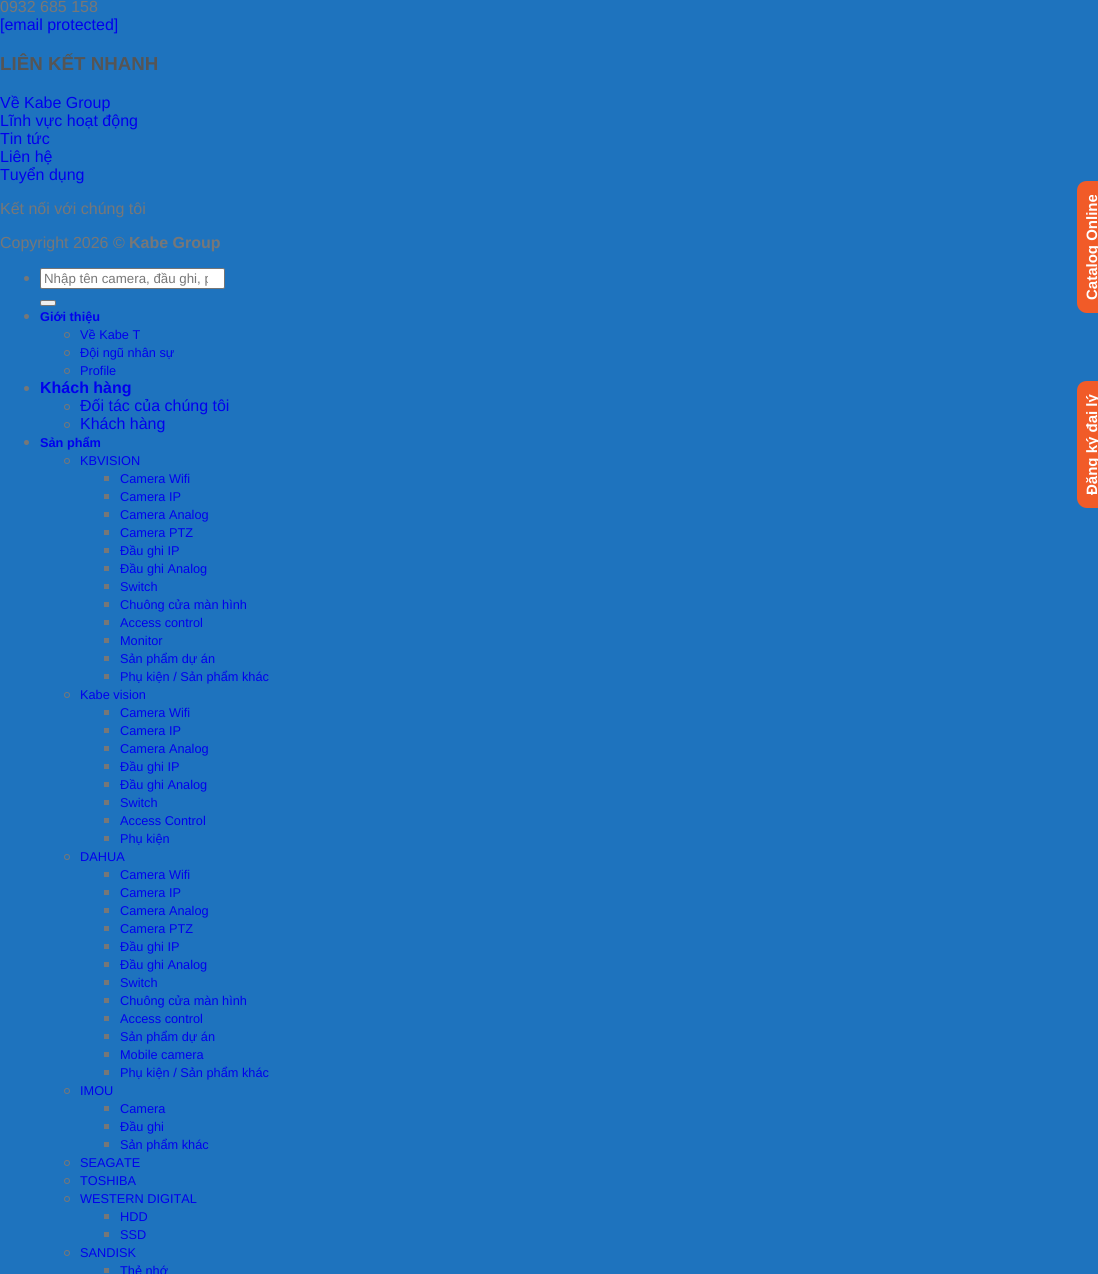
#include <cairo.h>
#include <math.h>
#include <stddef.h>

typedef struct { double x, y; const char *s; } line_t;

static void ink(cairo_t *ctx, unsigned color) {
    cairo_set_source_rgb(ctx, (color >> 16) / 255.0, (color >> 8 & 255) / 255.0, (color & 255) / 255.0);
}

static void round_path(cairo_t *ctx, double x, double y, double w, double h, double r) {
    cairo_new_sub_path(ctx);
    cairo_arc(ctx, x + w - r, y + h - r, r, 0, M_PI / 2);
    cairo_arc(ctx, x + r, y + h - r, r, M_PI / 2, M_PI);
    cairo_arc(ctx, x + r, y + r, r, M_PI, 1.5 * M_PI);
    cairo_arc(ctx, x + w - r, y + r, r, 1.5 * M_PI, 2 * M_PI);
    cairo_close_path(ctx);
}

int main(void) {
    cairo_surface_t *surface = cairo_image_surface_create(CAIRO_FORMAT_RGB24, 1098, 1274);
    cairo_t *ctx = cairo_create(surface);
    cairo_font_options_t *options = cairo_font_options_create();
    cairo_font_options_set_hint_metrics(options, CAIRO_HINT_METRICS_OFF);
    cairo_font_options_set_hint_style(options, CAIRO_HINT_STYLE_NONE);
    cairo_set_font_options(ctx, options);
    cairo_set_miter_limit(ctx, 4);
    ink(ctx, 0x1E73BE);
    cairo_paint(ctx);
    cairo_select_font_face(ctx, "Liberation Sans", CAIRO_FONT_SLANT_NORMAL, CAIRO_FONT_WEIGHT_NORMAL);
    cairo_set_font_size(ctx, 16);
    ink(ctx, 0x777777);
    cairo_move_to(ctx, 0, 12);
    cairo_show_text(ctx, "0932 685 158");
    ink(ctx, 0x0000EE);
    cairo_move_to(ctx, 0, 30);
    cairo_show_text(ctx, "[email protected]");
    cairo_select_font_face(ctx, "Liberation Sans", CAIRO_FONT_SLANT_NORMAL, CAIRO_FONT_WEIGHT_BOLD);
    cairo_set_font_size(ctx, 18.75);
    ink(ctx, 0x555555);
    cairo_move_to(ctx, 0, 70);
    cairo_show_text(ctx, "LIÊN KẾT NHANH");
    cairo_select_font_face(ctx, "Liberation Sans", CAIRO_FONT_SLANT_NORMAL, CAIRO_FONT_WEIGHT_NORMAL);
    cairo_set_font_size(ctx, 16);
    ink(ctx, 0x0000EE);
    {
        static const line_t items[] = {
            {0, 108, "Về Kabe Group"},
            {0, 126, "Lĩnh vực hoạt động"},
            {0, 144, "Tin tức"},
            {0, 162, "Liên hệ"},
            {0, 180, "Tuyển dụng"},
        };
        for (size_t i = 0; i < sizeof items / sizeof *items; i++) {
            cairo_move_to(ctx, items[i].x, items[i].y);
            cairo_show_text(ctx, items[i].s);
        }
    }
    ink(ctx, 0x777777);
    cairo_move_to(ctx, 0, 214);
    cairo_show_text(ctx, "Kết nối với chúng tôi");
    cairo_move_to(ctx, 0, 248);
    cairo_show_text(ctx, "Copyright 2026 ©");
    cairo_select_font_face(ctx, "Liberation Sans", CAIRO_FONT_SLANT_NORMAL, CAIRO_FONT_WEIGHT_BOLD);
    cairo_move_to(ctx, 129, 248);
    cairo_show_text(ctx, "Kabe Group");
    ink(ctx, 0xF15B28);
    cairo_new_path(ctx);
    cairo_move_to(ctx, 1077, 303);
    cairo_line_to(ctx, 1077, 191);
    cairo_curve_to(ctx, 1077, 185, 1081, 181, 1087, 181);
    cairo_line_to(ctx, 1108, 181);
    cairo_line_to(ctx, 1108, 313);
    cairo_line_to(ctx, 1087, 313);
    cairo_curve_to(ctx, 1081, 313, 1077, 308, 1077, 303);
    cairo_close_path(ctx);
    cairo_fill(ctx);
    cairo_set_font_size(ctx, 15);
    ink(ctx, 0xFFFFFF);
    cairo_save(ctx);
    cairo_translate(ctx, 1097, 300);
    cairo_rotate(ctx, -90 * M_PI / 180);
    cairo_move_to(ctx, 0, 0);
    cairo_show_text(ctx, "Catalog Online");
    cairo_restore(ctx);
    ink(ctx, 0xF15B28);
    cairo_new_path(ctx);
    cairo_move_to(ctx, 1077, 498);
    cairo_line_to(ctx, 1077, 391);
    cairo_curve_to(ctx, 1077, 385, 1081, 381, 1087, 381);
    cairo_line_to(ctx, 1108, 381);
    cairo_line_to(ctx, 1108, 508);
    cairo_line_to(ctx, 1087, 508);
    cairo_curve_to(ctx, 1081, 508, 1077, 503, 1077, 498);
    cairo_close_path(ctx);
    cairo_fill(ctx);
    ink(ctx, 0xFFFFFF);
    cairo_save(ctx);
    cairo_translate(ctx, 1097, 495);
    cairo_rotate(ctx, -90 * M_PI / 180);
    cairo_move_to(ctx, 0, 0);
    cairo_show_text(ctx, "Đăng ký đại lý");
    cairo_restore(ctx);
    ink(ctx, 0x777777);
    cairo_new_path(ctx);
    cairo_arc(ctx, 26.5, 278.5, 2.5, 0, 2 * M_PI);
    cairo_fill(ctx);
    ink(ctx, 0xFFFFFF);
    round_path(ctx, 40.5, 268.5, 184, 20, 1.5);
    cairo_fill_preserve(ctx);
    ink(ctx, 0x767676);
    cairo_set_line_width(ctx, 1);
    cairo_stroke(ctx);
    cairo_save(ctx);
    cairo_rectangle(ctx, 44, 271, 164, 15);
    cairo_clip(ctx);
    cairo_select_font_face(ctx, "Liberation Sans", CAIRO_FONT_SLANT_NORMAL, CAIRO_FONT_WEIGHT_NORMAL);
    cairo_set_font_size(ctx, 13.3);
    ink(ctx, 0x777777);
    cairo_move_to(ctx, 44, 283);
    cairo_show_text(ctx, "Nhập tên camera, đầu ghi, p");
    cairo_restore(ctx);
    ink(ctx, 0xEFEFEF);
    round_path(ctx, 40.5, 300.5, 15, 5, 1.5);
    cairo_fill_preserve(ctx);
    ink(ctx, 0x767676);
    cairo_stroke(ctx);
    ink(ctx, 0x777777);
    cairo_arc(ctx, 26.5, 316.5, 2.5, 0, 2 * M_PI);
    cairo_fill(ctx);
    cairo_set_font_size(ctx, 12.75);
    ink(ctx, 0x0000EE);
    cairo_move_to(ctx, 40, 321);
    cairo_show_text(ctx, "Giới thiệu");
    cairo_new_path(ctx);
    cairo_arc(ctx, 67, 335, 2.5, 0, 2 * M_PI);
    ink(ctx, 0x777777);
    cairo_stroke(ctx);
    cairo_select_font_face(ctx, "Liberation Sans", CAIRO_FONT_SLANT_NORMAL, CAIRO_FONT_WEIGHT_NORMAL);
    ink(ctx, 0x0000EE);
    cairo_move_to(ctx, 80, 339);
    cairo_show_text(ctx, "Về Kabe T");
    cairo_new_path(ctx);
    cairo_arc(ctx, 67, 353, 2.5, 0, 2 * M_PI);
    ink(ctx, 0x777777);
    cairo_stroke(ctx);
    ink(ctx, 0x0000EE);
    cairo_move_to(ctx, 80, 357);
    cairo_show_text(ctx, "Đội ngũ nhân sự");
    cairo_new_path(ctx);
    cairo_arc(ctx, 67, 371, 2.5, 0, 2 * M_PI);
    ink(ctx, 0x777777);
    cairo_stroke(ctx);
    ink(ctx, 0x0000EE);
    cairo_move_to(ctx, 80, 375);
    cairo_show_text(ctx, "Profile");
    ink(ctx, 0x777777);
    cairo_new_path(ctx);
    cairo_arc(ctx, 26.5, 388.5, 2.5, 0, 2 * M_PI);
    cairo_fill(ctx);
    cairo_select_font_face(ctx, "Liberation Sans", CAIRO_FONT_SLANT_NORMAL, CAIRO_FONT_WEIGHT_BOLD);
    cairo_set_font_size(ctx, 16);
    ink(ctx, 0x0000EE);
    cairo_move_to(ctx, 40, 393);
    cairo_show_text(ctx, "Khách hàng");
    cairo_new_path(ctx);
    cairo_arc(ctx, 67, 407, 2.5, 0, 2 * M_PI);
    ink(ctx, 0x777777);
    cairo_stroke(ctx);
    cairo_select_font_face(ctx, "Liberation Sans", CAIRO_FONT_SLANT_NORMAL, CAIRO_FONT_WEIGHT_NORMAL);
    ink(ctx, 0x0000EE);
    cairo_move_to(ctx, 80, 411);
    cairo_show_text(ctx, "Đối tác của chúng tôi");
    cairo_new_path(ctx);
    cairo_arc(ctx, 67, 425, 2.5, 0, 2 * M_PI);
    ink(ctx, 0x777777);
    cairo_stroke(ctx);
    ink(ctx, 0x0000EE);
    cairo_move_to(ctx, 80, 429);
    cairo_show_text(ctx, "Khách hàng");
    ink(ctx, 0x777777);
    cairo_new_path(ctx);
    cairo_arc(ctx, 26.5, 442.5, 2.5, 0, 2 * M_PI);
    cairo_fill(ctx);
    cairo_select_font_face(ctx, "Liberation Sans", CAIRO_FONT_SLANT_NORMAL, CAIRO_FONT_WEIGHT_BOLD);
    cairo_set_font_size(ctx, 12.75);
    ink(ctx, 0x0000EE);
    cairo_move_to(ctx, 40, 447);
    cairo_show_text(ctx, "Sản phẩm");
    cairo_new_path(ctx);
    cairo_arc(ctx, 67, 461, 2.5, 0, 2 * M_PI);
    ink(ctx, 0x777777);
    cairo_stroke(ctx);
    cairo_select_font_face(ctx, "Liberation Sans", CAIRO_FONT_SLANT_NORMAL, CAIRO_FONT_WEIGHT_NORMAL);
    ink(ctx, 0x0000EE);
    cairo_move_to(ctx, 80, 465);
    cairo_show_text(ctx, "KBVISION");
    ink(ctx, 0x777777);
    cairo_rectangle(ctx, 104, 476, 5, 5);
    cairo_fill(ctx);
    ink(ctx, 0x0000EE);
    cairo_move_to(ctx, 120, 483);
    cairo_show_text(ctx, "Camera Wifi");
    ink(ctx, 0x777777);
    cairo_rectangle(ctx, 104, 494, 5, 5);
    cairo_fill(ctx);
    ink(ctx, 0x0000EE);
    cairo_move_to(ctx, 120, 501);
    cairo_show_text(ctx, "Camera IP");
    ink(ctx, 0x777777);
    cairo_rectangle(ctx, 104, 512, 5, 5);
    cairo_fill(ctx);
    ink(ctx, 0x0000EE);
    cairo_move_to(ctx, 120, 519);
    cairo_show_text(ctx, "Camera Analog");
    ink(ctx, 0x777777);
    cairo_rectangle(ctx, 104, 530, 5, 5);
    cairo_fill(ctx);
    ink(ctx, 0x0000EE);
    cairo_move_to(ctx, 120, 537);
    cairo_show_text(ctx, "Camera PTZ");
    ink(ctx, 0x777777);
    cairo_rectangle(ctx, 104, 548, 5, 5);
    cairo_fill(ctx);
    ink(ctx, 0x0000EE);
    cairo_move_to(ctx, 120, 555);
    cairo_show_text(ctx, "Đầu ghi IP");
    ink(ctx, 0x777777);
    cairo_rectangle(ctx, 104, 566, 5, 5);
    cairo_fill(ctx);
    ink(ctx, 0x0000EE);
    cairo_move_to(ctx, 120, 573);
    cairo_show_text(ctx, "Đầu ghi Analog");
    ink(ctx, 0x777777);
    cairo_rectangle(ctx, 104, 584, 5, 5);
    cairo_fill(ctx);
    ink(ctx, 0x0000EE);
    cairo_move_to(ctx, 120, 591);
    cairo_show_text(ctx, "Switch");
    ink(ctx, 0x777777);
    cairo_rectangle(ctx, 104, 602, 5, 5);
    cairo_fill(ctx);
    ink(ctx, 0x0000EE);
    cairo_move_to(ctx, 120, 609);
    cairo_show_text(ctx, "Chuông cửa màn hình");
    ink(ctx, 0x777777);
    cairo_rectangle(ctx, 104, 620, 5, 5);
    cairo_fill(ctx);
    ink(ctx, 0x0000EE);
    cairo_move_to(ctx, 120, 627);
    cairo_show_text(ctx, "Access control");
    ink(ctx, 0x777777);
    cairo_rectangle(ctx, 104, 638, 5, 5);
    cairo_fill(ctx);
    ink(ctx, 0x0000EE);
    cairo_move_to(ctx, 120, 645);
    cairo_show_text(ctx, "Monitor");
    ink(ctx, 0x777777);
    cairo_rectangle(ctx, 104, 656, 5, 5);
    cairo_fill(ctx);
    ink(ctx, 0x0000EE);
    cairo_move_to(ctx, 120, 663);
    cairo_show_text(ctx, "Sản phẩm dự án");
    ink(ctx, 0x777777);
    cairo_rectangle(ctx, 104, 674, 5, 5);
    cairo_fill(ctx);
    ink(ctx, 0x0000EE);
    cairo_move_to(ctx, 120, 681);
    cairo_show_text(ctx, "Phụ kiện / Sản phẩm khác");
    cairo_new_path(ctx);
    cairo_arc(ctx, 67, 695, 2.5, 0, 2 * M_PI);
    ink(ctx, 0x777777);
    cairo_stroke(ctx);
    ink(ctx, 0x0000EE);
    cairo_move_to(ctx, 80, 699);
    cairo_show_text(ctx, "Kabe vision");
    ink(ctx, 0x777777);
    cairo_rectangle(ctx, 104, 710, 5, 5);
    cairo_fill(ctx);
    ink(ctx, 0x0000EE);
    cairo_move_to(ctx, 120, 717);
    cairo_show_text(ctx, "Camera Wifi");
    ink(ctx, 0x777777);
    cairo_rectangle(ctx, 104, 728, 5, 5);
    cairo_fill(ctx);
    ink(ctx, 0x0000EE);
    cairo_move_to(ctx, 120, 735);
    cairo_show_text(ctx, "Camera IP");
    ink(ctx, 0x777777);
    cairo_rectangle(ctx, 104, 746, 5, 5);
    cairo_fill(ctx);
    ink(ctx, 0x0000EE);
    cairo_move_to(ctx, 120, 753);
    cairo_show_text(ctx, "Camera Analog");
    ink(ctx, 0x777777);
    cairo_rectangle(ctx, 104, 764, 5, 5);
    cairo_fill(ctx);
    ink(ctx, 0x0000EE);
    cairo_move_to(ctx, 120, 771);
    cairo_show_text(ctx, "Đầu ghi IP");
    ink(ctx, 0x777777);
    cairo_rectangle(ctx, 104, 782, 5, 5);
    cairo_fill(ctx);
    ink(ctx, 0x0000EE);
    cairo_move_to(ctx, 120, 789);
    cairo_show_text(ctx, "Đầu ghi Analog");
    ink(ctx, 0x777777);
    cairo_rectangle(ctx, 104, 800, 5, 5);
    cairo_fill(ctx);
    ink(ctx, 0x0000EE);
    cairo_move_to(ctx, 120, 807);
    cairo_show_text(ctx, "Switch");
    ink(ctx, 0x777777);
    cairo_rectangle(ctx, 104, 818, 5, 5);
    cairo_fill(ctx);
    ink(ctx, 0x0000EE);
    cairo_move_to(ctx, 120, 825);
    cairo_show_text(ctx, "Access Control");
    ink(ctx, 0x777777);
    cairo_rectangle(ctx, 104, 836, 5, 5);
    cairo_fill(ctx);
    ink(ctx, 0x0000EE);
    cairo_move_to(ctx, 120, 843);
    cairo_show_text(ctx, "Phụ kiện");
    cairo_new_path(ctx);
    cairo_arc(ctx, 67, 857, 2.5, 0, 2 * M_PI);
    ink(ctx, 0x777777);
    cairo_stroke(ctx);
    ink(ctx, 0x0000EE);
    cairo_move_to(ctx, 80, 861);
    cairo_show_text(ctx, "DAHUA");
    ink(ctx, 0x777777);
    cairo_rectangle(ctx, 104, 872, 5, 5);
    cairo_fill(ctx);
    ink(ctx, 0x0000EE);
    cairo_move_to(ctx, 120, 879);
    cairo_show_text(ctx, "Camera Wifi");
    ink(ctx, 0x777777);
    cairo_rectangle(ctx, 104, 890, 5, 5);
    cairo_fill(ctx);
    ink(ctx, 0x0000EE);
    cairo_move_to(ctx, 120, 897);
    cairo_show_text(ctx, "Camera IP");
    ink(ctx, 0x777777);
    cairo_rectangle(ctx, 104, 908, 5, 5);
    cairo_fill(ctx);
    ink(ctx, 0x0000EE);
    cairo_move_to(ctx, 120, 915);
    cairo_show_text(ctx, "Camera Analog");
    ink(ctx, 0x777777);
    cairo_rectangle(ctx, 104, 926, 5, 5);
    cairo_fill(ctx);
    ink(ctx, 0x0000EE);
    cairo_move_to(ctx, 120, 933);
    cairo_show_text(ctx, "Camera PTZ");
    ink(ctx, 0x777777);
    cairo_rectangle(ctx, 104, 944, 5, 5);
    cairo_fill(ctx);
    ink(ctx, 0x0000EE);
    cairo_move_to(ctx, 120, 951);
    cairo_show_text(ctx, "Đầu ghi IP");
    ink(ctx, 0x777777);
    cairo_rectangle(ctx, 104, 962, 5, 5);
    cairo_fill(ctx);
    ink(ctx, 0x0000EE);
    cairo_move_to(ctx, 120, 969);
    cairo_show_text(ctx, "Đầu ghi Analog");
    ink(ctx, 0x777777);
    cairo_rectangle(ctx, 104, 980, 5, 5);
    cairo_fill(ctx);
    ink(ctx, 0x0000EE);
    cairo_move_to(ctx, 120, 987);
    cairo_show_text(ctx, "Switch");
    ink(ctx, 0x777777);
    cairo_rectangle(ctx, 104, 998, 5, 5);
    cairo_fill(ctx);
    ink(ctx, 0x0000EE);
    cairo_move_to(ctx, 120, 1005);
    cairo_show_text(ctx, "Chuông cửa màn hình");
    ink(ctx, 0x777777);
    cairo_rectangle(ctx, 104, 1016, 5, 5);
    cairo_fill(ctx);
    ink(ctx, 0x0000EE);
    cairo_move_to(ctx, 120, 1023);
    cairo_show_text(ctx, "Access control");
    ink(ctx, 0x777777);
    cairo_rectangle(ctx, 104, 1034, 5, 5);
    cairo_fill(ctx);
    ink(ctx, 0x0000EE);
    cairo_move_to(ctx, 120, 1041);
    cairo_show_text(ctx, "Sản phẩm dự án");
    ink(ctx, 0x777777);
    cairo_rectangle(ctx, 104, 1052, 5, 5);
    cairo_fill(ctx);
    ink(ctx, 0x0000EE);
    cairo_move_to(ctx, 120, 1059);
    cairo_show_text(ctx, "Mobile camera");
    ink(ctx, 0x777777);
    cairo_rectangle(ctx, 104, 1070, 5, 5);
    cairo_fill(ctx);
    ink(ctx, 0x0000EE);
    cairo_move_to(ctx, 120, 1077);
    cairo_show_text(ctx, "Phụ kiện / Sản phẩm khác");
    cairo_new_path(ctx);
    cairo_arc(ctx, 67, 1091, 2.5, 0, 2 * M_PI);
    ink(ctx, 0x777777);
    cairo_stroke(ctx);
    ink(ctx, 0x0000EE);
    cairo_move_to(ctx, 80, 1095);
    cairo_show_text(ctx, "IMOU");
    ink(ctx, 0x777777);
    cairo_rectangle(ctx, 104, 1106, 5, 5);
    cairo_fill(ctx);
    ink(ctx, 0x0000EE);
    cairo_move_to(ctx, 120, 1113);
    cairo_show_text(ctx, "Camera");
    ink(ctx, 0x777777);
    cairo_rectangle(ctx, 104, 1124, 5, 5);
    cairo_fill(ctx);
    ink(ctx, 0x0000EE);
    cairo_move_to(ctx, 120, 1131);
    cairo_show_text(ctx, "Đầu ghi");
    ink(ctx, 0x777777);
    cairo_rectangle(ctx, 104, 1142, 5, 5);
    cairo_fill(ctx);
    ink(ctx, 0x0000EE);
    cairo_move_to(ctx, 120, 1149);
    cairo_show_text(ctx, "Sản phẩm khác");
    cairo_new_path(ctx);
    cairo_arc(ctx, 67, 1163, 2.5, 0, 2 * M_PI);
    ink(ctx, 0x777777);
    cairo_stroke(ctx);
    ink(ctx, 0x0000EE);
    cairo_move_to(ctx, 80, 1167);
    cairo_show_text(ctx, "SEAGATE");
    cairo_new_path(ctx);
    cairo_arc(ctx, 67, 1181, 2.5, 0, 2 * M_PI);
    ink(ctx, 0x777777);
    cairo_stroke(ctx);
    ink(ctx, 0x0000EE);
    cairo_move_to(ctx, 80, 1185);
    cairo_show_text(ctx, "TOSHIBA");
    cairo_new_path(ctx);
    cairo_arc(ctx, 67, 1199, 2.5, 0, 2 * M_PI);
    ink(ctx, 0x777777);
    cairo_stroke(ctx);
    ink(ctx, 0x0000EE);
    cairo_move_to(ctx, 80, 1203);
    cairo_show_text(ctx, "WESTERN DIGITAL");
    ink(ctx, 0x777777);
    cairo_rectangle(ctx, 104, 1214, 5, 5);
    cairo_fill(ctx);
    ink(ctx, 0x0000EE);
    cairo_move_to(ctx, 120, 1221);
    cairo_show_text(ctx, "HDD");
    ink(ctx, 0x777777);
    cairo_rectangle(ctx, 104, 1232, 5, 5);
    cairo_fill(ctx);
    ink(ctx, 0x0000EE);
    cairo_move_to(ctx, 120, 1239);
    cairo_show_text(ctx, "SSD");
    cairo_new_path(ctx);
    cairo_arc(ctx, 67, 1253, 2.5, 0, 2 * M_PI);
    ink(ctx, 0x777777);
    cairo_stroke(ctx);
    ink(ctx, 0x0000EE);
    cairo_move_to(ctx, 80, 1257);
    cairo_show_text(ctx, "SANDISK");
    ink(ctx, 0x777777);
    cairo_rectangle(ctx, 104, 1268, 5, 5);
    cairo_fill(ctx);
    ink(ctx, 0x0000EE);
    cairo_move_to(ctx, 120, 1275);
    cairo_show_text(ctx, "Thẻ nhớ");
    cairo_surface_write_to_png(surface, "image.png");
    cairo_font_options_destroy(options);
    cairo_destroy(ctx);
    cairo_surface_destroy(surface);
    return 0;
}
